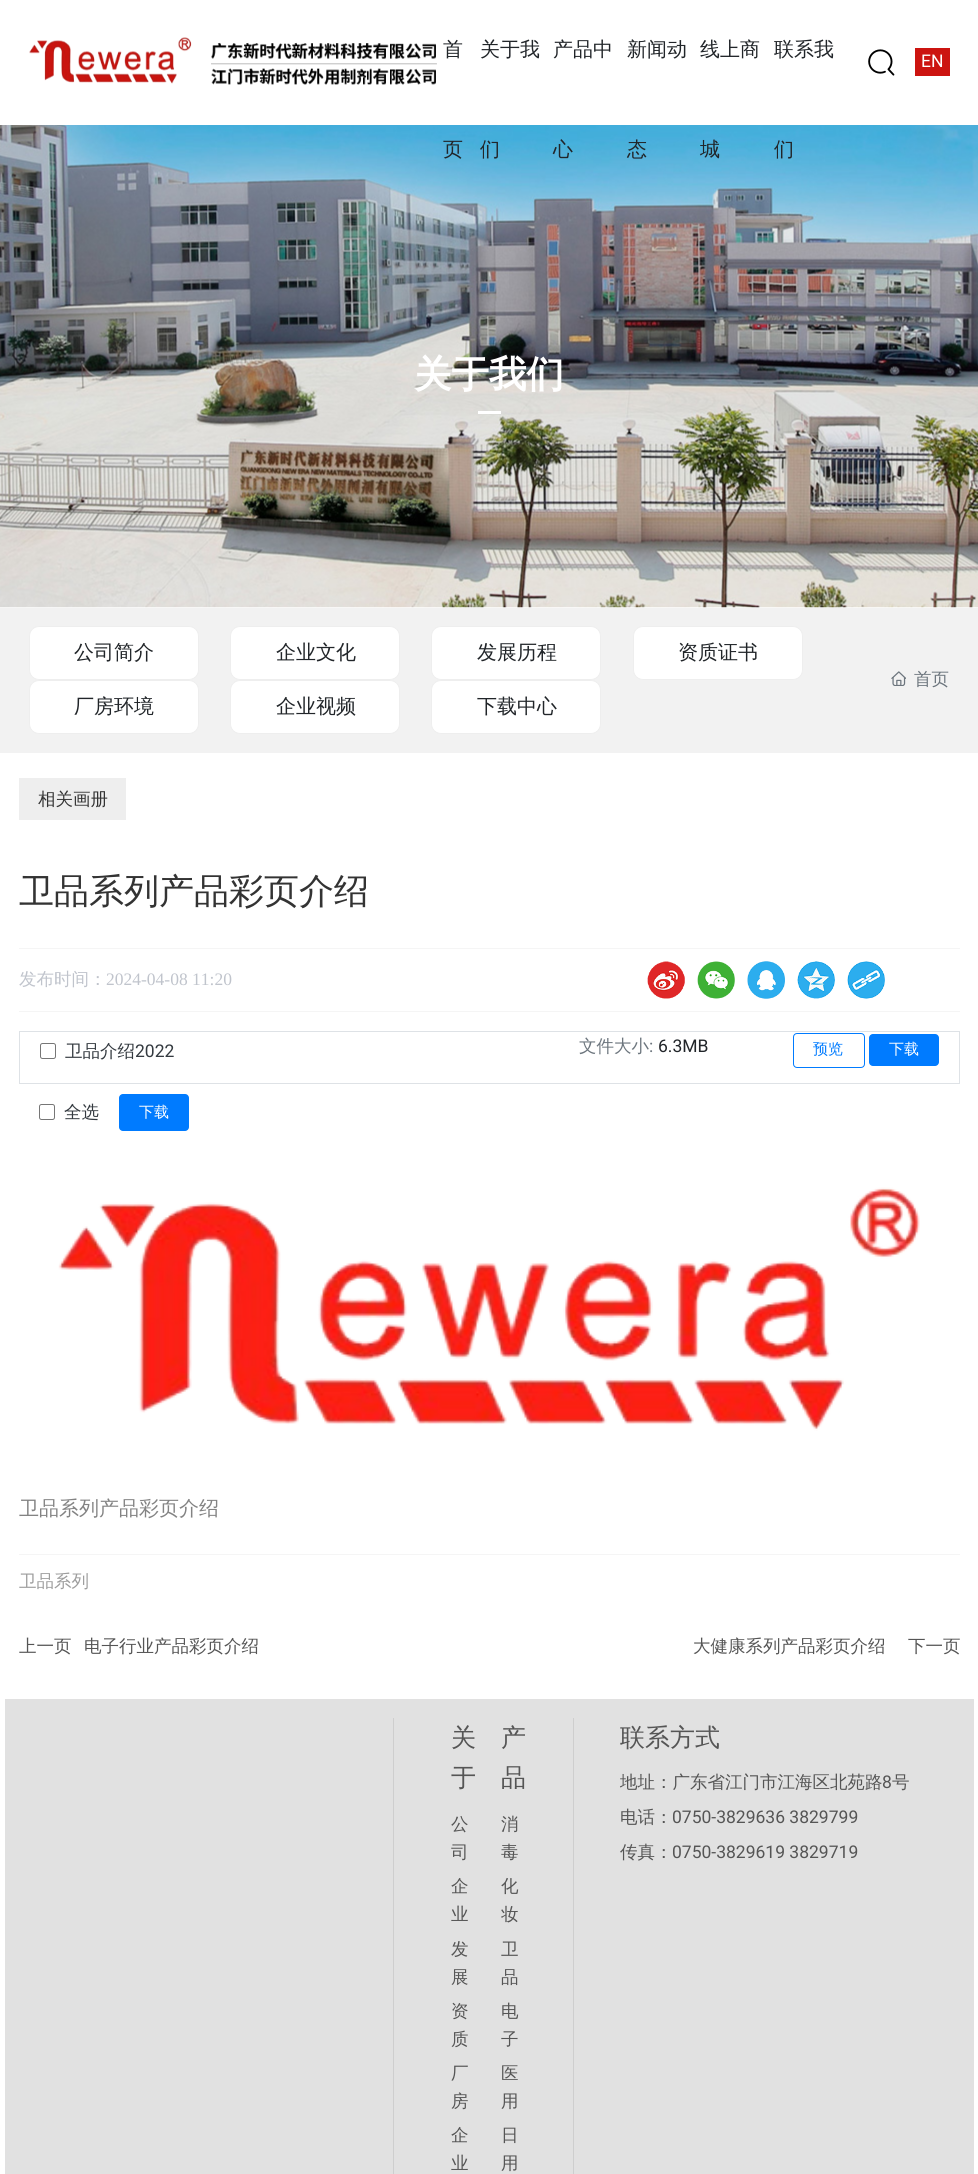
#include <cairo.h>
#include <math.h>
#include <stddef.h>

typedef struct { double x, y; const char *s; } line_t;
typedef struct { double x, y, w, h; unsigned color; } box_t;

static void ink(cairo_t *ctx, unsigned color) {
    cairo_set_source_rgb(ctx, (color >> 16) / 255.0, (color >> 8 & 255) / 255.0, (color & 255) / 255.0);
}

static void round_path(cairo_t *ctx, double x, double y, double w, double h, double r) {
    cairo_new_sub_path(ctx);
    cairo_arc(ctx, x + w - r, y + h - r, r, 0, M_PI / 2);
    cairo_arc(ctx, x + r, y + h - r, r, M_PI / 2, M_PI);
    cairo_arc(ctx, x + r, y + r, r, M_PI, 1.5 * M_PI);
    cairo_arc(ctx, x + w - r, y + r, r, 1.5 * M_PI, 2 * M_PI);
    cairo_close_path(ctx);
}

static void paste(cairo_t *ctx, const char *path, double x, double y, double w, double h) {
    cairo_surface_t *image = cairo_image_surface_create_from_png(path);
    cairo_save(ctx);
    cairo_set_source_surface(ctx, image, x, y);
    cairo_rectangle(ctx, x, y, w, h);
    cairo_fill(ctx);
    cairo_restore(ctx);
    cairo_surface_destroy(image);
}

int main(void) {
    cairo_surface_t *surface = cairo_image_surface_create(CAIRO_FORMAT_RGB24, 978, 2174);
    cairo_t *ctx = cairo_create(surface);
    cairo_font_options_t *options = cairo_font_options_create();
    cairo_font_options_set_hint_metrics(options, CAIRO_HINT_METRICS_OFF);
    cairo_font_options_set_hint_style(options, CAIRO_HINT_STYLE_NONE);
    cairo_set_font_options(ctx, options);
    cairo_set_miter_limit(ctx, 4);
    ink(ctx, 0xFFFFFF);
    cairo_paint(ctx);
    paste(ctx, "media/1.png", 29, 37, 408, 48);
    cairo_select_font_face(ctx, "WenQuanYi Zen Hei Medium", CAIRO_FONT_SLANT_NORMAL, CAIRO_FONT_WEIGHT_NORMAL);
    cairo_set_font_size(ctx, 20);
    ink(ctx, 0x212529);
    cairo_move_to(ctx, 443, 56);
    cairo_show_text(ctx, "首");
    paste(ctx, "media/3.png", 0, 125, 978, 483);
    {
        static const line_t items[] = {
            {443, 156, "页"},
            {480, 56, "关于我"},
            {480, 156, "们"},
            {553, 56, "产品中"},
            {553, 156, "心"},
            {627, 56, "新闻动"},
            {627, 156, "态"},
            {700, 56, "线上商"},
            {700, 156, "城"},
            {774, 56, "联系我"},
            {774, 156, "们"},
        };
        for (size_t i = 0; i < sizeof items / sizeof *items; i++) {
            cairo_move_to(ctx, items[i].x, items[i].y);
            cairo_show_text(ctx, items[i].s);
        }
    }
    paste(ctx, "media/2.png", 868, 49, 27, 27);
    ink(ctx, 0xCC1410);
    cairo_rectangle(ctx, 915, 48, 35, 28);
    cairo_fill(ctx);
    cairo_select_font_face(ctx, "Roboto", CAIRO_FONT_SLANT_NORMAL, CAIRO_FONT_WEIGHT_NORMAL);
    cairo_set_font_size(ctx, 17.5);
    ink(ctx, 0xFFFFFF);
    cairo_move_to(ctx, 921, 67);
    cairo_show_text(ctx, "EN");
    cairo_select_font_face(ctx, "WenQuanYi Zen Hei", CAIRO_FONT_SLANT_NORMAL, CAIRO_FONT_WEIGHT_BOLD);
    cairo_set_font_size(ctx, 37.5);
    cairo_move_to(ctx, 414, 387);
    cairo_show_text(ctx, "关于我们");
    cairo_rectangle(ctx, 478, 411, 23, 3);
    cairo_fill(ctx);
    ink(ctx, 0xF2F2F2);
    cairo_rectangle(ctx, 0, 608, 978, 145);
    cairo_fill(ctx);
    ink(ctx, 0xFFFFFF);
    round_path(ctx, 29.5, 626.5, 169, 53, 9.5);
    cairo_fill_preserve(ctx);
    ink(ctx, 0xEEEEEE);
    cairo_set_line_width(ctx, 1);
    cairo_stroke(ctx);
    cairo_select_font_face(ctx, "WenQuanYi Zen Hei Medium", CAIRO_FONT_SLANT_NORMAL, CAIRO_FONT_WEIGHT_NORMAL);
    cairo_set_font_size(ctx, 20);
    ink(ctx, 0x212529);
    cairo_move_to(ctx, 74, 659);
    cairo_show_text(ctx, "公司简介");
    ink(ctx, 0xFFFFFF);
    round_path(ctx, 230.5, 626.5, 169, 53, 9.5);
    cairo_fill_preserve(ctx);
    ink(ctx, 0xEEEEEE);
    cairo_stroke(ctx);
    ink(ctx, 0x212529);
    cairo_move_to(ctx, 276, 659);
    cairo_show_text(ctx, "企业文化");
    ink(ctx, 0xFFFFFF);
    round_path(ctx, 431.5, 626.5, 169, 53, 9.5);
    cairo_fill_preserve(ctx);
    ink(ctx, 0xEEEEEE);
    cairo_stroke(ctx);
    ink(ctx, 0x212529);
    cairo_move_to(ctx, 477, 659);
    cairo_show_text(ctx, "发展历程");
    ink(ctx, 0xFFFFFF);
    round_path(ctx, 633.5, 626.5, 169, 53, 9.5);
    cairo_fill_preserve(ctx);
    ink(ctx, 0xEEEEEE);
    cairo_stroke(ctx);
    ink(ctx, 0x212529);
    cairo_move_to(ctx, 678, 659);
    cairo_show_text(ctx, "资质证书");
    ink(ctx, 0xFFFFFF);
    round_path(ctx, 29.5, 680.5, 169, 53, 9.5);
    cairo_fill_preserve(ctx);
    ink(ctx, 0xEEEEEE);
    cairo_stroke(ctx);
    ink(ctx, 0x212529);
    cairo_move_to(ctx, 74, 713);
    cairo_show_text(ctx, "厂房环境");
    ink(ctx, 0xFFFFFF);
    round_path(ctx, 230.5, 680.5, 169, 53, 9.5);
    cairo_fill_preserve(ctx);
    ink(ctx, 0xEEEEEE);
    cairo_stroke(ctx);
    ink(ctx, 0x212529);
    cairo_move_to(ctx, 276, 713);
    cairo_show_text(ctx, "企业视频");
    ink(ctx, 0xFFFFFF);
    round_path(ctx, 431.5, 680.5, 169, 53, 9.5);
    cairo_fill_preserve(ctx);
    ink(ctx, 0xEEEEEE);
    cairo_stroke(ctx);
    ink(ctx, 0x212529);
    cairo_move_to(ctx, 477, 713);
    cairo_show_text(ctx, "下载中心");
    paste(ctx, "media/4.png", 891, 671, 15, 15);
    cairo_set_font_size(ctx, 17.5);
    ink(ctx, 0x6C757D);
    cairo_move_to(ctx, 914, 685);
    cairo_show_text(ctx, "首页");
    ink(ctx, 0xEEEEEE);
    cairo_rectangle(ctx, 19, 778, 107, 42);
    cairo_fill(ctx);
    ink(ctx, 0x333333);
    cairo_move_to(ctx, 38, 805);
    cairo_show_text(ctx, "相关画册");
    cairo_set_font_size(ctx, 35);
    cairo_move_to(ctx, 19, 903);
    cairo_show_text(ctx, "卫品系列产品彩页介绍");
    ink(ctx, 0xF5F5F5);
    cairo_rectangle(ctx, 19, 948, 941, 1);
    cairo_fill(ctx);
    cairo_set_font_size(ctx, 17.5);
    ink(ctx, 0xC0C4CC);
    cairo_move_to(ctx, 19, 985);
    cairo_show_text(ctx, "发布时间：");
    cairo_select_font_face(ctx, "Liberation Serif", CAIRO_FONT_SLANT_NORMAL, CAIRO_FONT_WEIGHT_NORMAL);
    cairo_move_to(ctx, 106, 985);
    cairo_show_text(ctx, "2024-04-08 11:20");
    paste(ctx, "media/5.png", 647, 961, 38, 38);
    paste(ctx, "media/6.png", 697, 961, 38, 38);
    paste(ctx, "media/7.png", 747, 961, 38, 38);
    paste(ctx, "media/8.png", 797, 961, 38, 38);
    paste(ctx, "media/9.png", 847, 961, 38, 38);
    ink(ctx, 0xF5F5F5);
    cairo_rectangle(ctx, 19, 1011, 941, 1);
    cairo_fill(ctx);
    cairo_rectangle(ctx, 19.5, 1031.5, 940, 52);
    ink(ctx, 0xDEE2E6);
    cairo_stroke(ctx);
    round_path(ctx, 40.5, 1043.5, 15, 15, 2);
    ink(ctx, 0x767676);
    cairo_stroke(ctx);
    cairo_select_font_face(ctx, "WenQuanYi Zen Hei Medium", CAIRO_FONT_SLANT_NORMAL, CAIRO_FONT_WEIGHT_NORMAL);
    ink(ctx, 0x343A40);
    cairo_move_to(ctx, 65, 1057);
    cairo_show_text(ctx, "卫品介绍");
    cairo_select_font_face(ctx, "Roboto", CAIRO_FONT_SLANT_NORMAL, CAIRO_FONT_WEIGHT_NORMAL);
    cairo_move_to(ctx, 135, 1057);
    cairo_show_text(ctx, "2022");
    cairo_select_font_face(ctx, "WenQuanYi Zen Hei Medium", CAIRO_FONT_SLANT_NORMAL, CAIRO_FONT_WEIGHT_NORMAL);
    ink(ctx, 0x6C757D);
    cairo_move_to(ctx, 579, 1052);
    cairo_show_text(ctx, "文件大小");
    cairo_select_font_face(ctx, "Roboto", CAIRO_FONT_SLANT_NORMAL, CAIRO_FONT_WEIGHT_NORMAL);
    cairo_move_to(ctx, 649, 1052);
    cairo_show_text(ctx, ":");
    ink(ctx, 0x212529);
    cairo_move_to(ctx, 658, 1052);
    cairo_show_text(ctx, "6.3MB");
    round_path(ctx, 793.5, 1033.5, 71, 34, 3.5);
    ink(ctx, 0x007BFF);
    cairo_stroke(ctx);
    cairo_select_font_face(ctx, "WenQuanYi Zen Hei Medium", CAIRO_FONT_SLANT_NORMAL, CAIRO_FONT_WEIGHT_NORMAL);
    cairo_set_font_size(ctx, 15);
    cairo_move_to(ctx, 813, 1054);
    cairo_show_text(ctx, "预览");
    round_path(ctx, 869, 1034, 70, 32, 4);
    cairo_fill(ctx);
    ink(ctx, 0xFFFFFF);
    cairo_move_to(ctx, 889, 1054);
    cairo_show_text(ctx, "下载");
    round_path(ctx, 39.5, 1104.5, 15, 15, 2);
    ink(ctx, 0x767676);
    cairo_stroke(ctx);
    cairo_set_font_size(ctx, 17.5);
    ink(ctx, 0x343A40);
    cairo_move_to(ctx, 64, 1118);
    cairo_show_text(ctx, "全选");
    ink(ctx, 0x007BFF);
    round_path(ctx, 119, 1094, 70, 37, 4);
    cairo_fill(ctx);
    cairo_set_font_size(ctx, 15);
    ink(ctx, 0xFFFFFF);
    cairo_move_to(ctx, 139, 1117);
    cairo_show_text(ctx, "下载");
    paste(ctx, "media/10.png", 58, 1187, 862, 244);
    cairo_set_font_size(ctx, 20);
    ink(ctx, 0x838383);
    cairo_move_to(ctx, 19, 1515);
    cairo_show_text(ctx, "卫品系列产品彩页介绍");
    ink(ctx, 0xF5F5F5);
    cairo_rectangle(ctx, 19, 1554, 941, 1);
    cairo_fill(ctx);
    cairo_set_font_size(ctx, 17.5);
    ink(ctx, 0x9D9D9D);
    cairo_move_to(ctx, 19, 1587);
    cairo_show_text(ctx, "卫品系列");
    ink(ctx, 0x555555);
    {
        static const line_t items[] = {
            {19, 1652, "上一页"},
            {84, 1652, "电子行业产品彩页介绍"},
            {693, 1652, "大健康系列产品彩页介绍"},
            {908, 1652, "下一页"},
        };
        for (size_t i = 0; i < sizeof items / sizeof *items; i++) {
            cairo_move_to(ctx, items[i].x, items[i].y);
            cairo_show_text(ctx, items[i].s);
        }
    }
    {
        static const box_t items[] = {
            {5, 1699, 969, 475, 0xE1E1E1},
            {573, 1718, 1, 456, 0xCECECE},
            {393, 1718, 1, 456, 0xCECECE},
        };
        for (size_t i = 0; i < sizeof items / sizeof *items; i++) {
            ink(ctx, items[i].color);
            cairo_rectangle(ctx, items[i].x, items[i].y, items[i].w, items[i].h);
            cairo_fill(ctx);
        }
    }
    cairo_set_font_size(ctx, 25);
    ink(ctx, 0x555555);
    cairo_move_to(ctx, 451, 1746);
    cairo_show_text(ctx, "关");
    cairo_move_to(ctx, 451, 1786);
    cairo_show_text(ctx, "于");
    cairo_set_font_size(ctx, 17.5);
    {
        static const line_t items[] = {
            {451, 1830, "公"},
            {451, 1858, "司"},
            {451, 1892, "企"},
            {451, 1920, "业"},
            {451, 1955, "发"},
            {451, 1983, "展"},
            {451, 2017, "资"},
            {451, 2045, "质"},
            {451, 2079, "厂"},
            {451, 2107, "房"},
            {451, 2141, "企"},
            {451, 2169, "业"},
        };
        for (size_t i = 0; i < sizeof items / sizeof *items; i++) {
            cairo_move_to(ctx, items[i].x, items[i].y);
            cairo_show_text(ctx, items[i].s);
        }
    }
    cairo_set_font_size(ctx, 25);
    cairo_move_to(ctx, 501, 1746);
    cairo_show_text(ctx, "产");
    cairo_move_to(ctx, 501, 1786);
    cairo_show_text(ctx, "品");
    cairo_set_font_size(ctx, 17.5);
    {
        static const line_t items[] = {
            {501, 1830, "消"},
            {501, 1858, "毒"},
            {501, 1892, "化"},
            {501, 1920, "妆"},
            {501, 1955, "卫"},
            {501, 1983, "品"},
            {501, 2017, "电"},
            {501, 2045, "子"},
            {501, 2079, "医"},
            {501, 2107, "用"},
            {501, 2141, "日"},
            {501, 2169, "用"},
        };
        for (size_t i = 0; i < sizeof items / sizeof *items; i++) {
            cairo_move_to(ctx, items[i].x, items[i].y);
            cairo_show_text(ctx, items[i].s);
        }
    }
    cairo_set_font_size(ctx, 25);
    cairo_move_to(ctx, 620, 1746);
    cairo_show_text(ctx, "联系方式");
    cairo_set_font_size(ctx, 17.5);
    cairo_move_to(ctx, 620, 1788);
    cairo_show_text(ctx, "地址：广东省江门市江海区北苑路");
    cairo_select_font_face(ctx, "Roboto", CAIRO_FONT_SLANT_NORMAL, CAIRO_FONT_WEIGHT_NORMAL);
    cairo_move_to(ctx, 882, 1788);
    cairo_show_text(ctx, "8");
    cairo_select_font_face(ctx, "WenQuanYi Zen Hei Medium", CAIRO_FONT_SLANT_NORMAL, CAIRO_FONT_WEIGHT_NORMAL);
    cairo_move_to(ctx, 892, 1788);
    cairo_show_text(ctx, "号");
    cairo_move_to(ctx, 620, 1823);
    cairo_show_text(ctx, "电话：");
    cairo_select_font_face(ctx, "Roboto", CAIRO_FONT_SLANT_NORMAL, CAIRO_FONT_WEIGHT_NORMAL);
    cairo_move_to(ctx, 672, 1823);
    cairo_show_text(ctx, "0750-3829636 3829799");
    cairo_select_font_face(ctx, "WenQuanYi Zen Hei Medium", CAIRO_FONT_SLANT_NORMAL, CAIRO_FONT_WEIGHT_NORMAL);
    cairo_move_to(ctx, 620, 1858);
    cairo_show_text(ctx, "传真：");
    cairo_select_font_face(ctx, "Roboto", CAIRO_FONT_SLANT_NORMAL, CAIRO_FONT_WEIGHT_NORMAL);
    cairo_move_to(ctx, 672, 1858);
    cairo_show_text(ctx, "0750-3829619 3829719");
    cairo_surface_write_to_png(surface, "image.png");
    cairo_font_options_destroy(options);
    cairo_destroy(ctx);
    cairo_surface_destroy(surface);
    return 0;
}
